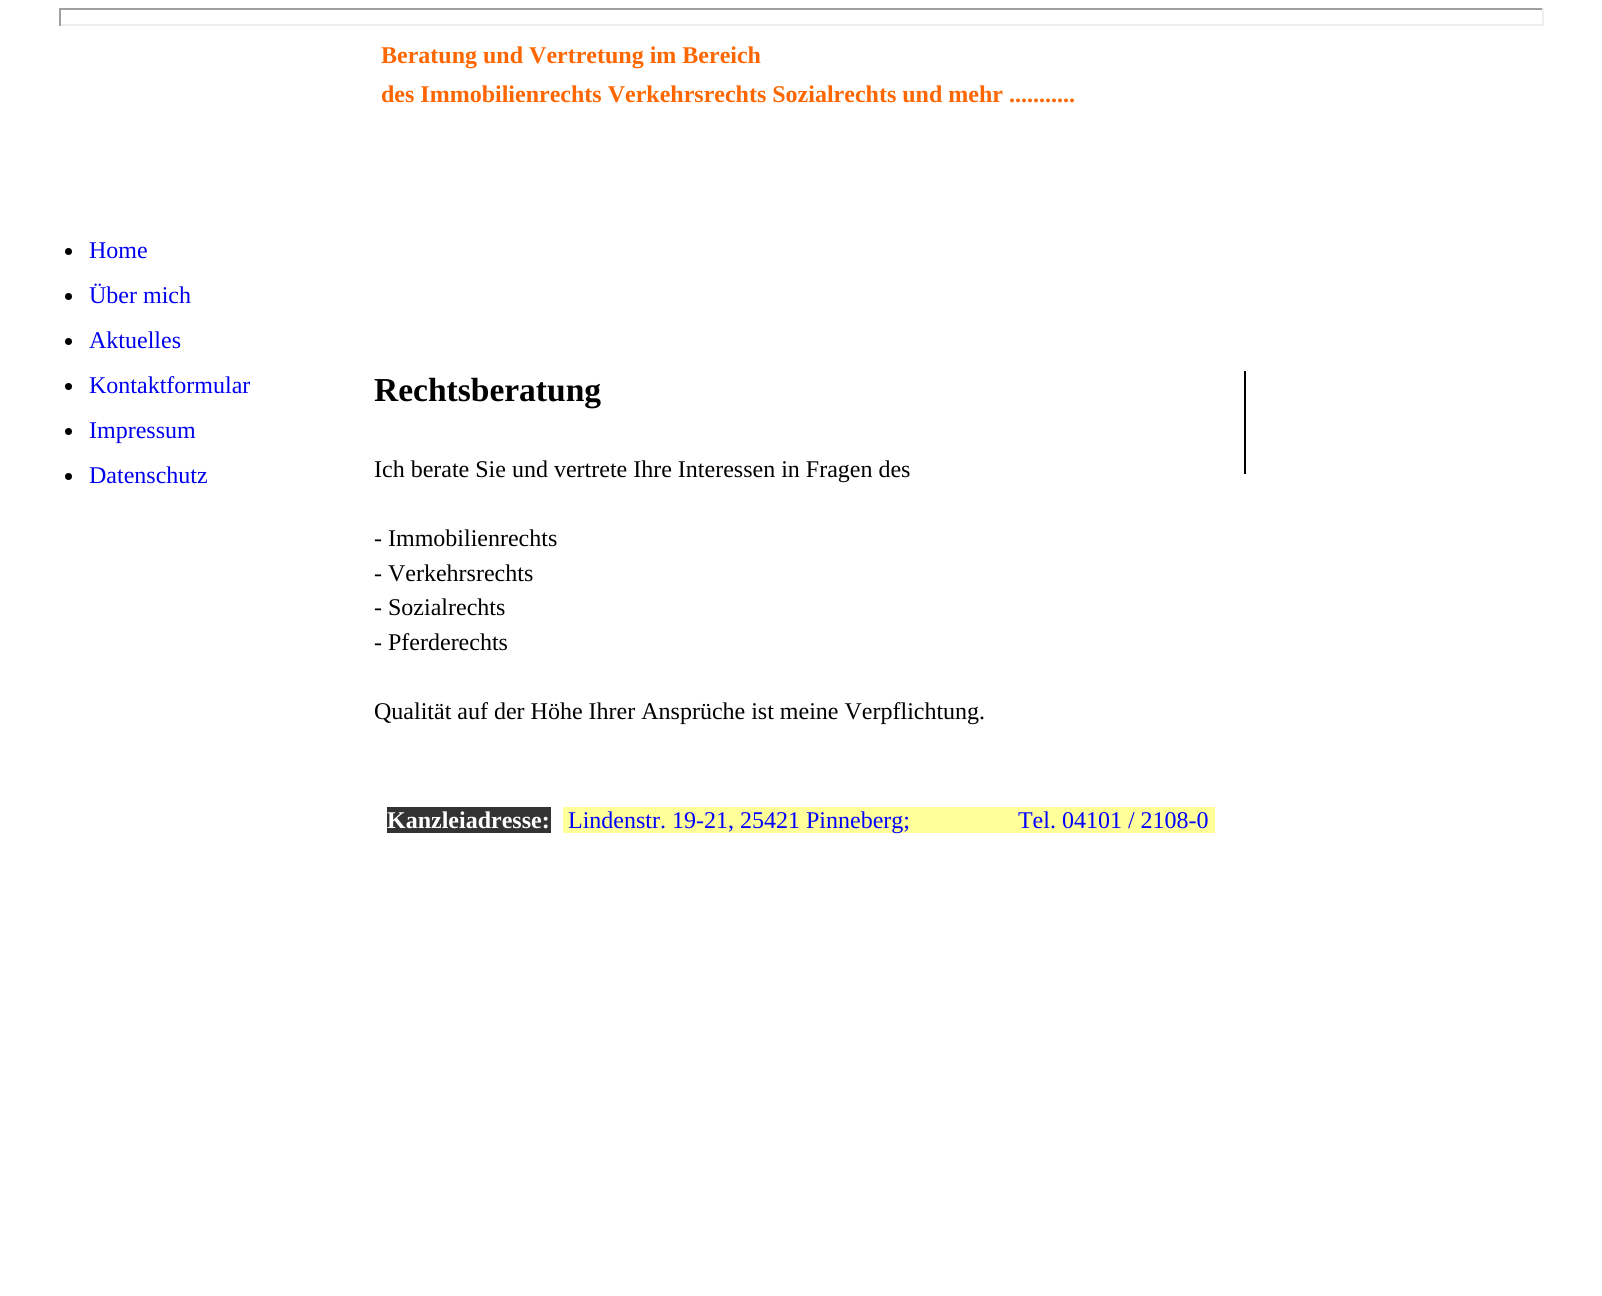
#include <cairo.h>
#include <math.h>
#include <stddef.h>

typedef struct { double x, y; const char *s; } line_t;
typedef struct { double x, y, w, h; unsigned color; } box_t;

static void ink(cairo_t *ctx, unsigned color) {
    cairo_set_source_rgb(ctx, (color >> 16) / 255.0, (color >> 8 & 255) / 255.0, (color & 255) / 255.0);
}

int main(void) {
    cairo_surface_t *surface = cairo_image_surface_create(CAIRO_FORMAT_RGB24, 1602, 1296);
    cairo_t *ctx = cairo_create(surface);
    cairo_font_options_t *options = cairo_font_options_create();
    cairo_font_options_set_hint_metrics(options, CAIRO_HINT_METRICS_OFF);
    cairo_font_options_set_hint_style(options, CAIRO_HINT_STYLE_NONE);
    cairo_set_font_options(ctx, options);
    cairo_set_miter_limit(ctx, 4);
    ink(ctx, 0xFFFFFF);
    cairo_paint(ctx);
    {
        static const box_t items[] = {
            {59, 8, 1485, 2, 0x9F9F9F},
            {1542, 8, 2, 18, 0xEEEEEE},
            {59, 24, 1485, 2, 0xEEEEEE},
            {59, 8, 2, 18, 0x9F9F9F},
        };
        for (size_t i = 0; i < sizeof items / sizeof *items; i++) {
            ink(ctx, items[i].color);
            cairo_rectangle(ctx, items[i].x, items[i].y, items[i].w, items[i].h);
            cairo_fill(ctx);
        }
    }
    cairo_select_font_face(ctx, "Liberation Serif", CAIRO_FONT_SLANT_NORMAL, CAIRO_FONT_WEIGHT_BOLD);
    cairo_set_font_size(ctx, 24);
    ink(ctx, 0xFF6600);
    cairo_move_to(ctx, 381, 63);
    cairo_show_text(ctx, "Beratung und Vertretung im Bereich");
    cairo_move_to(ctx, 381, 102);
    cairo_show_text(ctx, "des Immobilienrechts Verkehrsrechts Sozialrechts und mehr ...........");
    ink(ctx, 0x000000);
    cairo_new_path(ctx);
    cairo_arc(ctx, 68.5, 251.5, 3.5, 0, 2 * M_PI);
    cairo_fill(ctx);
    cairo_select_font_face(ctx, "Liberation Serif", CAIRO_FONT_SLANT_NORMAL, CAIRO_FONT_WEIGHT_NORMAL);
    ink(ctx, 0x0000EE);
    cairo_move_to(ctx, 89, 258);
    cairo_show_text(ctx, "Home");
    ink(ctx, 0x000000);
    cairo_new_path(ctx);
    cairo_arc(ctx, 68.5, 296.5, 3.5, 0, 2 * M_PI);
    cairo_fill(ctx);
    ink(ctx, 0x0000EE);
    cairo_move_to(ctx, 89, 303);
    cairo_show_text(ctx, "Über mich");
    ink(ctx, 0x000000);
    cairo_new_path(ctx);
    cairo_arc(ctx, 68.5, 341.5, 3.5, 0, 2 * M_PI);
    cairo_fill(ctx);
    ink(ctx, 0x0000EE);
    cairo_move_to(ctx, 89, 348);
    cairo_show_text(ctx, "Aktuelles");
    ink(ctx, 0x000000);
    cairo_new_path(ctx);
    cairo_arc(ctx, 68.5, 386.5, 3.5, 0, 2 * M_PI);
    cairo_fill(ctx);
    ink(ctx, 0x0000EE);
    cairo_move_to(ctx, 89, 393);
    cairo_show_text(ctx, "Kontaktformular");
    ink(ctx, 0x000000);
    cairo_new_path(ctx);
    cairo_arc(ctx, 68.5, 431.5, 3.5, 0, 2 * M_PI);
    cairo_fill(ctx);
    ink(ctx, 0x0000EE);
    cairo_move_to(ctx, 89, 438);
    cairo_show_text(ctx, "Impressum");
    ink(ctx, 0x000000);
    cairo_new_path(ctx);
    cairo_arc(ctx, 68.5, 476.5, 3.5, 0, 2 * M_PI);
    cairo_fill(ctx);
    ink(ctx, 0x0000EE);
    cairo_move_to(ctx, 89, 483);
    cairo_show_text(ctx, "Datenschutz");
    cairo_select_font_face(ctx, "Liberation Serif", CAIRO_FONT_SLANT_NORMAL, CAIRO_FONT_WEIGHT_BOLD);
    cairo_set_font_size(ctx, 33.5);
    ink(ctx, 0x000000);
    cairo_move_to(ctx, 374, 401);
    cairo_show_text(ctx, "Rechtsberatung");
    cairo_select_font_face(ctx, "Liberation Serif", CAIRO_FONT_SLANT_NORMAL, CAIRO_FONT_WEIGHT_NORMAL);
    cairo_set_font_size(ctx, 24);
    {
        static const line_t items[] = {
            {374, 477, "Ich berate Sie und vertrete Ihre Interessen in Fragen des"},
            {374, 546, "- Immobilienrechts"},
            {374, 581, "- Verkehrsrechts"},
            {374, 615, "- Sozialrechts"},
            {374, 650, "- Pferderechts"},
            {374, 719, "Qualität auf der Höhe Ihrer Ansprüche ist meine Verpflichtung."},
        };
        for (size_t i = 0; i < sizeof items / sizeof *items; i++) {
            cairo_move_to(ctx, items[i].x, items[i].y);
            cairo_show_text(ctx, items[i].s);
        }
    }
    cairo_rectangle(ctx, 1244, 371, 2, 103);
    cairo_fill(ctx);
    ink(ctx, 0x333333);
    cairo_rectangle(ctx, 387, 807, 164, 26);
    cairo_fill(ctx);
    cairo_select_font_face(ctx, "Liberation Serif", CAIRO_FONT_SLANT_NORMAL, CAIRO_FONT_WEIGHT_BOLD);
    ink(ctx, 0xFFFFFF);
    cairo_move_to(ctx, 387, 828);
    cairo_show_text(ctx, "Kanzleiadresse:");
    ink(ctx, 0xFFFF99);
    cairo_rectangle(ctx, 563, 807, 652, 26);
    cairo_fill(ctx);
    cairo_select_font_face(ctx, "Liberation Serif", CAIRO_FONT_SLANT_NORMAL, CAIRO_FONT_WEIGHT_NORMAL);
    ink(ctx, 0x0000FF);
    cairo_move_to(ctx, 568, 828);
    cairo_show_text(ctx, "Lindenstr. 19-21, 25421 Pinneberg;                  Tel. 04101 / 2108-0");
    cairo_surface_write_to_png(surface, "image.png");
    cairo_font_options_destroy(options);
    cairo_destroy(ctx);
    cairo_surface_destroy(surface);
    return 0;
}
